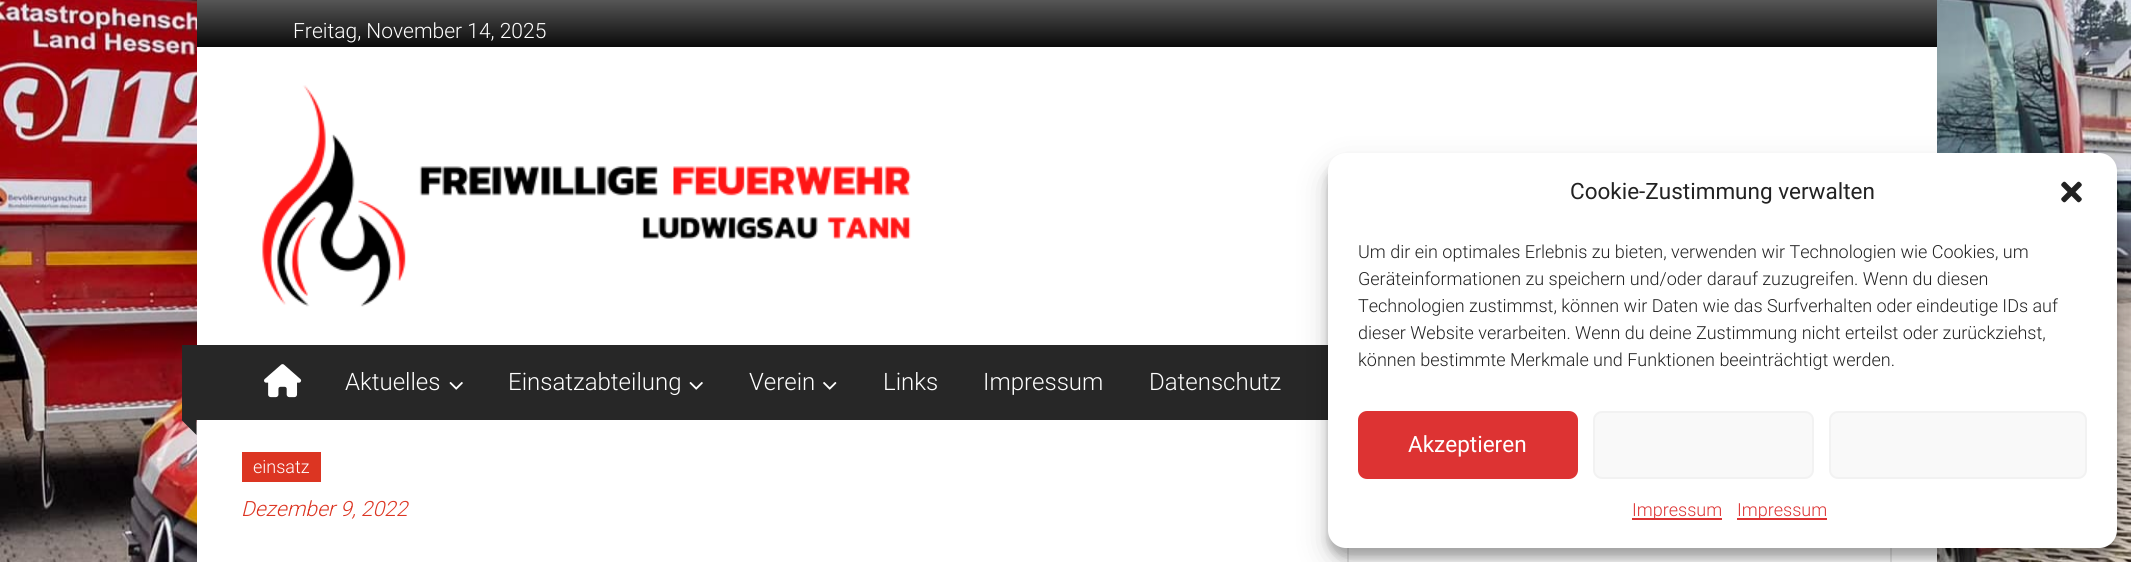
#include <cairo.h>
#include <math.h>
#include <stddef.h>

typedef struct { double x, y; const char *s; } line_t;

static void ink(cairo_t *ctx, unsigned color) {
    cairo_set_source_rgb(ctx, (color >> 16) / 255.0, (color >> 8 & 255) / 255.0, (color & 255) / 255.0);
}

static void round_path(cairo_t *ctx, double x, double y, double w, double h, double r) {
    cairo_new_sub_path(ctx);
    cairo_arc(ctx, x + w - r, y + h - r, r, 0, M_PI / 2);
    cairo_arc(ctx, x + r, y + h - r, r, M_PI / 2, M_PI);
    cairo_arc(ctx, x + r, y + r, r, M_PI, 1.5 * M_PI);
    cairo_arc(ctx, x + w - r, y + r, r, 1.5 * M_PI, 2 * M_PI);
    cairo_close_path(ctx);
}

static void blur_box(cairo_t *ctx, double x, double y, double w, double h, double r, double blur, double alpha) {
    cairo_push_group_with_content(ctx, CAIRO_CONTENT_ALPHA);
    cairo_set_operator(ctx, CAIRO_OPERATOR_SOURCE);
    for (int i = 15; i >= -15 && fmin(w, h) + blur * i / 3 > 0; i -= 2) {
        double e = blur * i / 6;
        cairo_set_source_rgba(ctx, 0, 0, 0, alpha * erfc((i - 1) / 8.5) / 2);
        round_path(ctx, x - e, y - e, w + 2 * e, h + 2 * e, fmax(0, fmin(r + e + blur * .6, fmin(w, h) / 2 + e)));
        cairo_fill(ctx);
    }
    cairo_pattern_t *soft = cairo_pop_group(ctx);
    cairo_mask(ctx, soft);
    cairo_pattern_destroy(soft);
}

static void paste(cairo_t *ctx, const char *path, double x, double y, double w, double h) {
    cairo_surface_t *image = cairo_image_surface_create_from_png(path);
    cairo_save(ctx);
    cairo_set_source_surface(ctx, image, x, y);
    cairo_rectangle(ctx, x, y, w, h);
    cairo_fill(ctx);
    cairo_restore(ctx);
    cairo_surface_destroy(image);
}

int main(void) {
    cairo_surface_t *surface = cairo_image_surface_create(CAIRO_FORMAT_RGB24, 2131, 562);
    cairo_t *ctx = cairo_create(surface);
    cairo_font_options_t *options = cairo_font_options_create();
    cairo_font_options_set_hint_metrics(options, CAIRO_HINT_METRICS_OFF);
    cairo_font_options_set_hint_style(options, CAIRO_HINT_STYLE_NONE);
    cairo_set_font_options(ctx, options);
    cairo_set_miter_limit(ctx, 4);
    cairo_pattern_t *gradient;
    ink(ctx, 0xFFFFFF);
    cairo_paint(ctx);
    paste(ctx, "media/1.png", 0, 0, 2131, 562);
    ink(ctx, 0xFFFFFF);
    cairo_rectangle(ctx, 197, 47, 1740, 515);
    cairo_fill(ctx);
    gradient = cairo_pattern_create_linear(1067, 0, 1067, 47);
    cairo_pattern_add_color_stop_rgba(gradient, 0, 0.337, 0.337, 0.337, 1);
    cairo_pattern_add_color_stop_rgba(gradient, 1, 0.039, 0.039, 0.039, 1);
    cairo_set_source(ctx, gradient);
    cairo_pattern_destroy(gradient);
    cairo_rectangle(ctx, 197, 0, 1740, 47);
    cairo_fill(ctx);
    cairo_select_font_face(ctx, "Roboto Light", CAIRO_FONT_SLANT_NORMAL, CAIRO_FONT_WEIGHT_NORMAL);
    cairo_set_font_size(ctx, 21);
    ink(ctx, 0xFFFFFF);
    cairo_move_to(ctx, 293, 38);
    cairo_show_text(ctx, "Freitag, November 14, 2025");
    paste(ctx, "media/2.png", 262, 85, 649, 222);
    ink(ctx, 0x272727);
    cairo_rectangle(ctx, 182, 345, 1146, 75);
    cairo_fill(ctx);
    paste(ctx, "media/3.png", 264, 364, 38, 34);
    cairo_set_font_size(ctx, 24);
    ink(ctx, 0xFFFFFF);
    cairo_move_to(ctx, 345, 390);
    cairo_show_text(ctx, "Aktuelles");
    paste(ctx, "media/4.png", 449, 382, 14, 8);
    cairo_move_to(ctx, 508, 390);
    cairo_show_text(ctx, "Einsatzabteilung");
    paste(ctx, "media/4.png", 689, 382, 14, 8);
    cairo_move_to(ctx, 749, 390);
    cairo_show_text(ctx, "Verein");
    paste(ctx, "media/5.png", 823, 382, 14, 8);
    {
        static const line_t items[] = {
            {883, 390, "Links"},
            {983, 390, "Impressum"},
            {1149, 390, "Datenschutz"},
        };
        for (size_t i = 0; i < sizeof items / sizeof *items; i++) {
            cairo_move_to(ctx, items[i].x, items[i].y);
            cairo_show_text(ctx, items[i].s);
        }
    }
    ink(ctx, 0x272727);
    cairo_new_path(ctx);
    cairo_move_to(ctx, 196.5, 405);
    cairo_line_to(ctx, 196.5, 435);
    cairo_line_to(ctx, 181.5, 420);
    cairo_close_path(ctx);
    cairo_fill(ctx);
    ink(ctx, 0xDC3522);
    cairo_rectangle(ctx, 242, 452, 79, 30);
    cairo_fill(ctx);
    cairo_set_font_size(ctx, 18);
    ink(ctx, 0xFFFFFF);
    cairo_move_to(ctx, 253, 473);
    cairo_show_text(ctx, "einsatz");
    cairo_select_font_face(ctx, "Roboto Light", CAIRO_FONT_SLANT_ITALIC, CAIRO_FONT_WEIGHT_NORMAL);
    cairo_set_font_size(ctx, 21);
    ink(ctx, 0xDC3522);
    cairo_move_to(ctx, 241, 516);
    cairo_show_text(ctx, "Dezember 9, 2022");
    cairo_rectangle(ctx, 1348, 451, 543, 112);
    ink(ctx, 0xE6E6E6);
    cairo_stroke(ctx);
    ink(ctx, 0x000000);
    blur_box(ctx, 1328, 162, 789, 395, 18, 4.5, 0.23);
    blur_box(ctx, 1328, 168, 789, 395, 18, 15, 0.19);
    ink(ctx, 0xFFFFFF);
    round_path(ctx, 1328, 153, 789, 395, 18);
    cairo_fill(ctx);
    cairo_select_font_face(ctx, "Roboto", CAIRO_FONT_SLANT_NORMAL, CAIRO_FONT_WEIGHT_NORMAL);
    cairo_set_font_size(ctx, 22.5);
    ink(ctx, 0x222222);
    cairo_move_to(ctx, 1570, 199);
    cairo_show_text(ctx, "Cookie-Zustimmung verwalten");
    paste(ctx, "media/6.png", 2061, 181, 21, 22);
    cairo_select_font_face(ctx, "Roboto Light", CAIRO_FONT_SLANT_NORMAL, CAIRO_FONT_WEIGHT_NORMAL);
    cairo_set_font_size(ctx, 18);
    {
        static const line_t items[] = {
            {1358, 258, "Um dir ein optimales Erlebnis zu bieten, verwenden wir Technologien wie Cookies, um"},
            {1358, 285, "Geräteinformationen zu speichern und/oder darauf zuzugreifen. Wenn du diesen"},
            {1358, 312, "Technologien zustimmst, können wir Daten wie das Surfverhalten oder eindeutige IDs auf"},
            {1358, 339, "dieser Website verarbeiten. Wenn du deine Zustimmung nicht erteilst oder zurückziehst,"},
            {1358, 366, "können bestimmte Merkmale und Funktionen beeinträchtigt werden."},
        };
        for (size_t i = 0; i < sizeof items / sizeof *items; i++) {
            cairo_move_to(ctx, items[i].x, items[i].y);
            cairo_show_text(ctx, items[i].s);
        }
    }
    ink(ctx, 0xDD3333);
    round_path(ctx, 1359, 412, 218, 66, 8);
    cairo_fill_preserve(ctx);
    cairo_stroke(ctx);
    cairo_select_font_face(ctx, "Roboto", CAIRO_FONT_SLANT_NORMAL, CAIRO_FONT_WEIGHT_NORMAL);
    cairo_set_font_size(ctx, 22.5);
    ink(ctx, 0xFFFFFF);
    cairo_move_to(ctx, 1408, 452);
    cairo_show_text(ctx, "Akzeptieren");
    ink(ctx, 0xF9F9F9);
    round_path(ctx, 1594, 412, 219, 66, 8);
    cairo_fill_preserve(ctx);
    ink(ctx, 0xF2F2F2);
    cairo_stroke(ctx);
    ink(ctx, 0xF9F9F9);
    round_path(ctx, 1830, 412, 256, 66, 8);
    cairo_fill_preserve(ctx);
    ink(ctx, 0xF2F2F2);
    cairo_stroke(ctx);
    ink(ctx, 0xDD3333);
    cairo_rectangle(ctx, 1632, 518, 90, 2);
    cairo_fill(ctx);
    cairo_select_font_face(ctx, "Roboto Light", CAIRO_FONT_SLANT_NORMAL, CAIRO_FONT_WEIGHT_NORMAL);
    cairo_set_font_size(ctx, 18);
    cairo_move_to(ctx, 1632, 516);
    cairo_show_text(ctx, "Impressum");
    cairo_rectangle(ctx, 1737, 518, 90, 2);
    cairo_fill(ctx);
    cairo_move_to(ctx, 1737, 516);
    cairo_show_text(ctx, "Impressum");
    cairo_surface_write_to_png(surface, "image.png");
    cairo_font_options_destroy(options);
    cairo_destroy(ctx);
    cairo_surface_destroy(surface);
    return 0;
}
